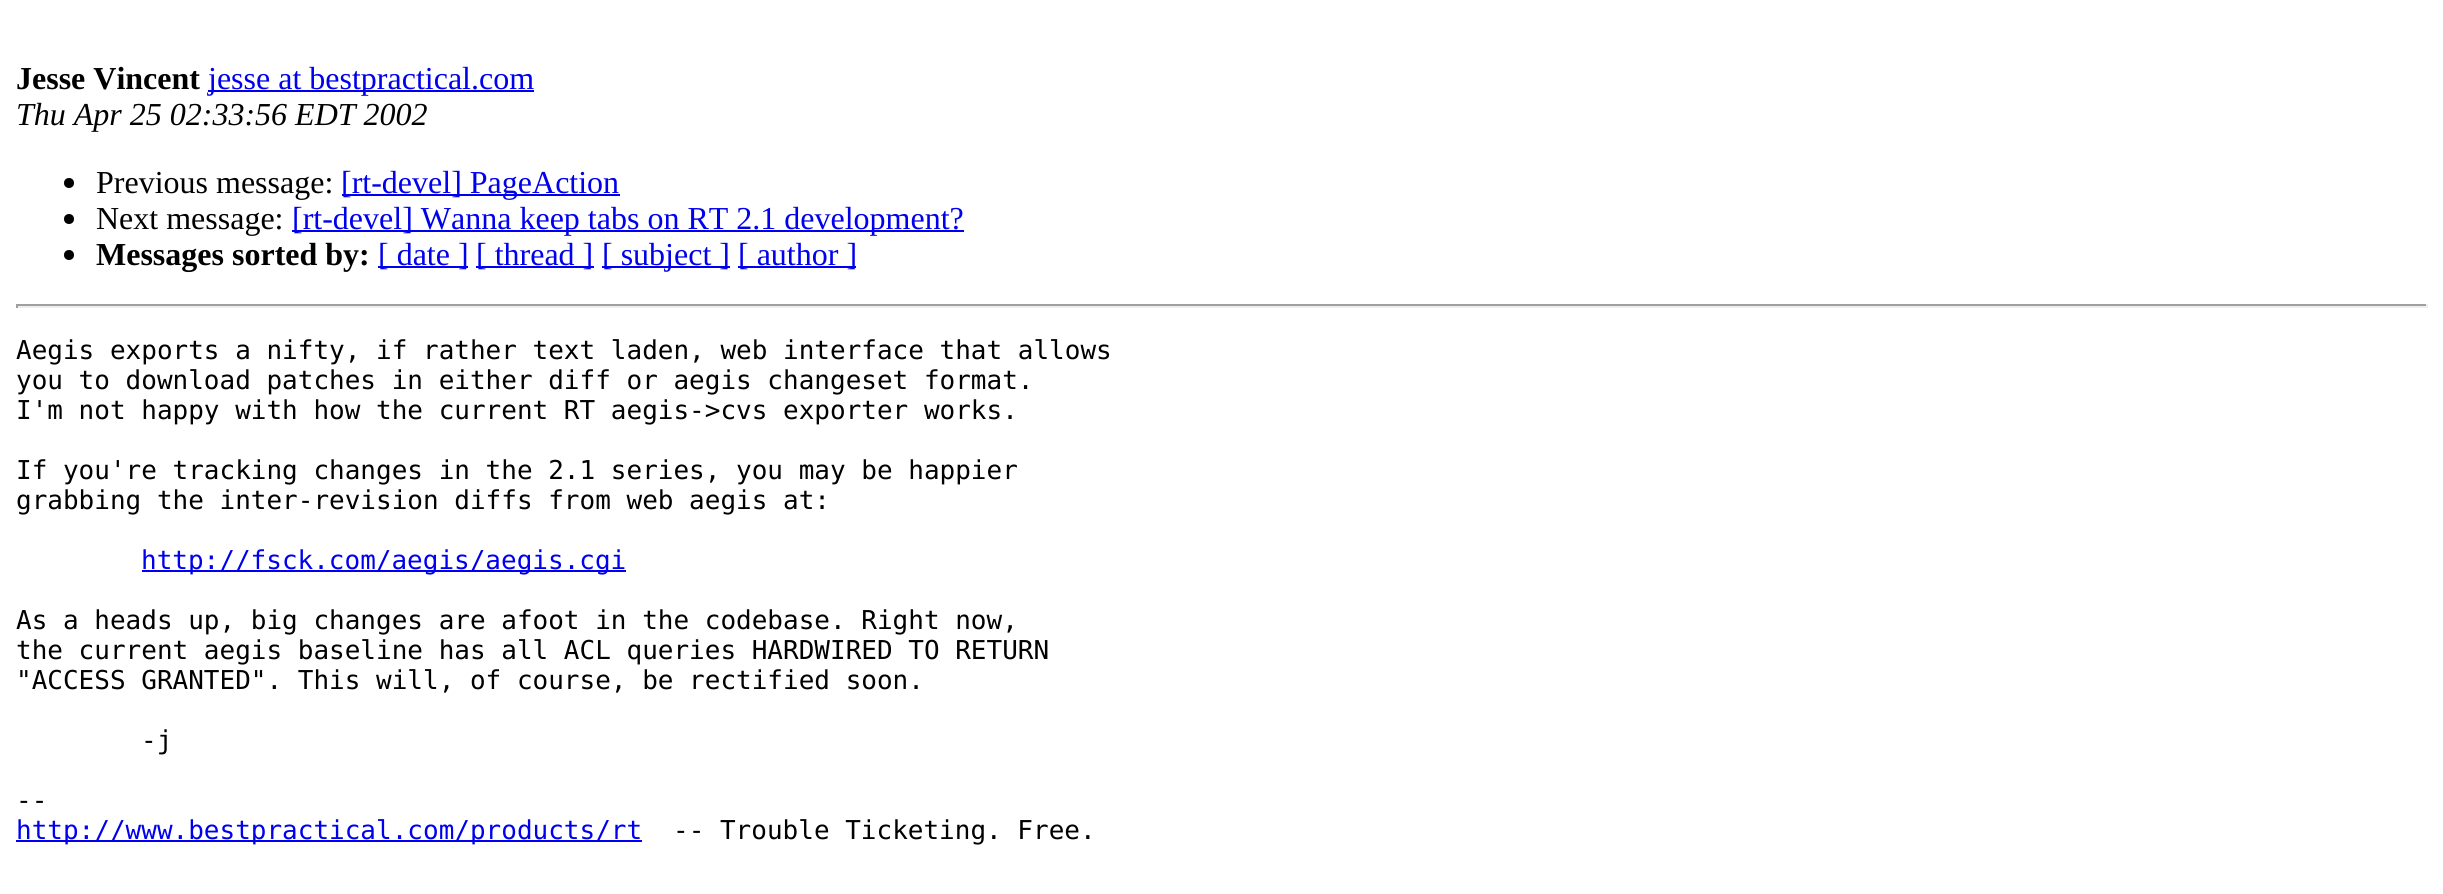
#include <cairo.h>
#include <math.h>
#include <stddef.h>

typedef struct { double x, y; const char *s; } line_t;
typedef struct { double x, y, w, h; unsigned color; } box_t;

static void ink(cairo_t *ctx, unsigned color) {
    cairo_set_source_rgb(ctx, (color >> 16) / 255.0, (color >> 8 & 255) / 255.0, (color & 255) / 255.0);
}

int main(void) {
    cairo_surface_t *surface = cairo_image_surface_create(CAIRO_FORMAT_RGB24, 2443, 894);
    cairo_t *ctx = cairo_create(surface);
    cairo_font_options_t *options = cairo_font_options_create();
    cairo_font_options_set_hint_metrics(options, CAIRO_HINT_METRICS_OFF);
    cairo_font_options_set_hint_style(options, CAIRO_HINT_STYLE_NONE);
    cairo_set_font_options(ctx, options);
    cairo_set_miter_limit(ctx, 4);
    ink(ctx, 0xFFFFFF);
    cairo_paint(ctx);
    cairo_select_font_face(ctx, "Liberation Serif", CAIRO_FONT_SLANT_NORMAL, CAIRO_FONT_WEIGHT_BOLD);
    cairo_set_font_size(ctx, 32);
    ink(ctx, 0x000000);
    cairo_move_to(ctx, 16, 89);
    cairo_show_text(ctx, "Jesse Vincent");
    ink(ctx, 0x0000EE);
    cairo_rectangle(ctx, 208, 90, 326, 2);
    cairo_fill(ctx);
    cairo_select_font_face(ctx, "Liberation Serif", CAIRO_FONT_SLANT_NORMAL, CAIRO_FONT_WEIGHT_NORMAL);
    cairo_move_to(ctx, 208, 89);
    cairo_show_text(ctx, "jesse at bestpractical.com");
    cairo_select_font_face(ctx, "Liberation Serif", CAIRO_FONT_SLANT_ITALIC, CAIRO_FONT_WEIGHT_NORMAL);
    ink(ctx, 0x000000);
    cairo_move_to(ctx, 16, 125);
    cairo_show_text(ctx, "Thu Apr 25 02:33:56 EDT 2002");
    cairo_new_path(ctx);
    cairo_arc(ctx, 69, 183, 5, 0, 2 * M_PI);
    cairo_fill(ctx);
    cairo_select_font_face(ctx, "Liberation Serif", CAIRO_FONT_SLANT_NORMAL, CAIRO_FONT_WEIGHT_NORMAL);
    cairo_move_to(ctx, 96, 193);
    cairo_show_text(ctx, "Previous message:");
    ink(ctx, 0x0000EE);
    cairo_rectangle(ctx, 342, 194, 278, 2);
    cairo_fill(ctx);
    cairo_move_to(ctx, 341, 193);
    cairo_show_text(ctx, "[rt-devel] PageAction");
    ink(ctx, 0x000000);
    cairo_new_path(ctx);
    cairo_arc(ctx, 69, 219, 5, 0, 2 * M_PI);
    cairo_fill(ctx);
    cairo_move_to(ctx, 96, 229);
    cairo_show_text(ctx, "Next message:");
    ink(ctx, 0x0000EE);
    cairo_rectangle(ctx, 292, 230, 672, 2);
    cairo_fill(ctx);
    cairo_move_to(ctx, 292, 229);
    cairo_show_text(ctx, "[rt-devel] Wanna keep tabs on RT 2.1 development?");
    ink(ctx, 0x000000);
    cairo_new_path(ctx);
    cairo_arc(ctx, 69, 255, 5, 0, 2 * M_PI);
    cairo_fill(ctx);
    cairo_select_font_face(ctx, "Liberation Serif", CAIRO_FONT_SLANT_NORMAL, CAIRO_FONT_WEIGHT_BOLD);
    cairo_move_to(ctx, 96, 265);
    cairo_show_text(ctx, "Messages sorted by:");
    ink(ctx, 0x0000EE);
    cairo_rectangle(ctx, 378, 266, 90, 2);
    cairo_fill(ctx);
    cairo_select_font_face(ctx, "Liberation Serif", CAIRO_FONT_SLANT_NORMAL, CAIRO_FONT_WEIGHT_NORMAL);
    cairo_move_to(ctx, 378, 265);
    cairo_show_text(ctx, "[ date ]");
    cairo_rectangle(ctx, 476, 266, 118, 2);
    cairo_fill(ctx);
    cairo_move_to(ctx, 476, 265);
    cairo_show_text(ctx, "[ thread ]");
    cairo_rectangle(ctx, 602, 266, 128, 2);
    cairo_fill(ctx);
    cairo_move_to(ctx, 602, 265);
    cairo_show_text(ctx, "[ subject ]");
    cairo_rectangle(ctx, 738, 266, 118, 2);
    cairo_fill(ctx);
    cairo_move_to(ctx, 738, 265);
    cairo_show_text(ctx, "[ author ]");
    {
        static const box_t items[] = {
            {16, 304, 2412, 2, 0x9F9F9F},
            {2426, 304, 2, 4, 0xEEEEEE},
            {16, 306, 2412, 2, 0xEEEEEE},
            {16, 304, 2, 4, 0x9F9F9F},
        };
        for (size_t i = 0; i < sizeof items / sizeof *items; i++) {
            ink(ctx, items[i].color);
            cairo_rectangle(ctx, items[i].x, items[i].y, items[i].w, items[i].h);
            cairo_fill(ctx);
        }
    }
    cairo_select_font_face(ctx, "DejaVu Sans Mono", CAIRO_FONT_SLANT_NORMAL, CAIRO_FONT_WEIGHT_NORMAL);
    cairo_set_font_size(ctx, 26);
    ink(ctx, 0x000000);
    {
        static const line_t items[] = {
            {16, 359, "Aegis exports a nifty, if rather text laden, web interface that allows"},
            {16, 389, "you to download patches in either diff or aegis changeset format."},
            {16, 419, "I'm not happy with how the current RT aegis->cvs exporter works."},
            {16, 479, "If you're tracking changes in the 2.1 series, you may be happier"},
            {16, 509, "grabbing the inter-revision diffs from web aegis at:"},
        };
        for (size_t i = 0; i < sizeof items / sizeof *items; i++) {
            cairo_move_to(ctx, items[i].x, items[i].y);
            cairo_show_text(ctx, items[i].s);
        }
    }
    ink(ctx, 0x0000EE);
    cairo_rectangle(ctx, 142, 570, 484, 2);
    cairo_fill(ctx);
    cairo_move_to(ctx, 141, 569);
    cairo_show_text(ctx, "http://fsck.com/aegis/aegis.cgi");
    ink(ctx, 0x000000);
    {
        static const line_t items[] = {
            {16, 629, "As a heads up, big changes are afoot in the codebase. Right now,"},
            {16, 659, "the current aegis baseline has all ACL queries HARDWIRED TO RETURN"},
            {16, 689, "\"ACCESS GRANTED\". This will, of course, be rectified soon."},
            {141, 749, "-j"},
            {16, 809, "--"},
        };
        for (size_t i = 0; i < sizeof items / sizeof *items; i++) {
            cairo_move_to(ctx, items[i].x, items[i].y);
            cairo_show_text(ctx, items[i].s);
        }
    }
    ink(ctx, 0x0000EE);
    cairo_rectangle(ctx, 16, 840, 626, 2);
    cairo_fill(ctx);
    cairo_move_to(ctx, 16, 839);
    cairo_show_text(ctx, "http://www.bestpractical.com/products/rt");
    ink(ctx, 0x000000);
    cairo_move_to(ctx, 673, 839);
    cairo_show_text(ctx, "-- Trouble Ticketing. Free.");
    cairo_surface_write_to_png(surface, "image.png");
    cairo_font_options_destroy(options);
    cairo_destroy(ctx);
    cairo_surface_destroy(surface);
    return 0;
}
